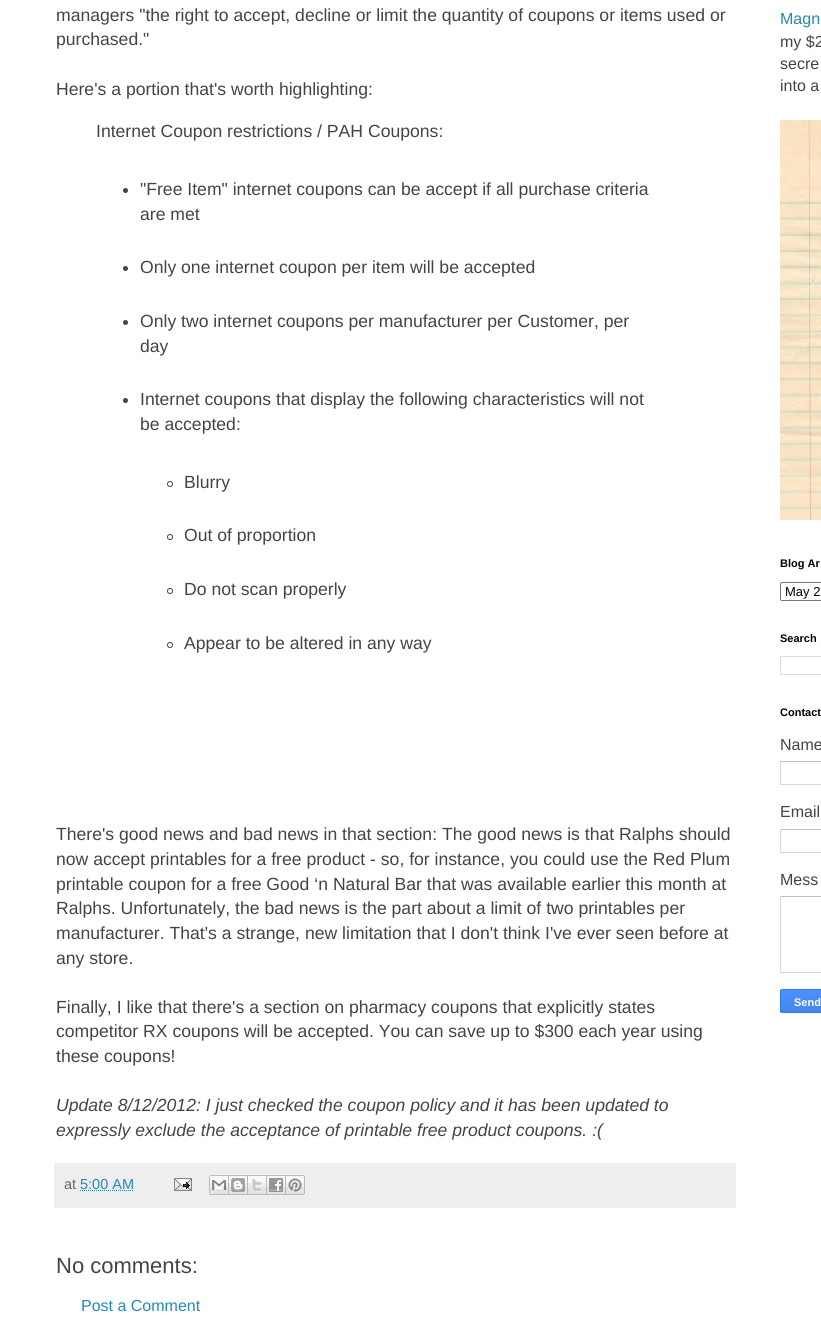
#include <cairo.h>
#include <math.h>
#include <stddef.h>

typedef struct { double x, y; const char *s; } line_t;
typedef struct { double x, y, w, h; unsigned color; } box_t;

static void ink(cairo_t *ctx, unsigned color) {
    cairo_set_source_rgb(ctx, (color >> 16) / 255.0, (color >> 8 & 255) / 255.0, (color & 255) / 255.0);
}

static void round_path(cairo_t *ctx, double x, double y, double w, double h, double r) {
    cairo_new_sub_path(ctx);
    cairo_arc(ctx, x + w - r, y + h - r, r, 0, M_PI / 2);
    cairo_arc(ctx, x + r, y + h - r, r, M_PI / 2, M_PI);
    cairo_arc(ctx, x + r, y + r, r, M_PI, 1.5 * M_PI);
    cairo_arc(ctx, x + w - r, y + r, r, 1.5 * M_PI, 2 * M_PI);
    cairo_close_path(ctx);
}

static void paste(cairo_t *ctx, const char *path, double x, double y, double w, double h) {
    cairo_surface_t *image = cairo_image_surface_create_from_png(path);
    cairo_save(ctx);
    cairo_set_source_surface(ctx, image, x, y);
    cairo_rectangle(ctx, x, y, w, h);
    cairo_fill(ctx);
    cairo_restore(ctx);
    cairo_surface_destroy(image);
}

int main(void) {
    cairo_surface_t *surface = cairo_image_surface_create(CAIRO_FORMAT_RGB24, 821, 1335);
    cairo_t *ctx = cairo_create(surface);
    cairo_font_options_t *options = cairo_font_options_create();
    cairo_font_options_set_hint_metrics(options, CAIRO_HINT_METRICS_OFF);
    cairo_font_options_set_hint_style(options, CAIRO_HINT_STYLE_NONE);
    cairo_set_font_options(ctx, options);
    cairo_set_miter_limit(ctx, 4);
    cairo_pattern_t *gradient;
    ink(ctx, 0xFFFFFF);
    cairo_paint(ctx);
    cairo_select_font_face(ctx, "Liberation Sans", CAIRO_FONT_SLANT_NORMAL, CAIRO_FONT_WEIGHT_NORMAL);
    cairo_set_font_size(ctx, 17.6);
    ink(ctx, 0x444444);
    {
        static const line_t items[] = {
            {56, 21, "managers \"the right to accept, decline or limit the quantity of coupons or items used or"},
            {56, 45, "purchased.\""},
            {56, 95, "Here's a portion that's worth highlighting:"},
            {96, 137, "Internet Coupon restrictions / PAH Coupons:"},
        };
        for (size_t i = 0; i < sizeof items / sizeof *items; i++) {
            cairo_move_to(ctx, items[i].x, items[i].y);
            cairo_show_text(ctx, items[i].s);
        }
    }
    cairo_new_path(ctx);
    cairo_arc(ctx, 125.5, 190.5, 2.5, 0, 2 * M_PI);
    cairo_fill(ctx);
    cairo_move_to(ctx, 140, 195);
    cairo_show_text(ctx, "\"Free Item\" internet coupons can be accept if all purchase criteria");
    cairo_move_to(ctx, 140, 220);
    cairo_show_text(ctx, "are met");
    cairo_new_path(ctx);
    cairo_arc(ctx, 125.5, 268.5, 2.5, 0, 2 * M_PI);
    cairo_fill(ctx);
    cairo_move_to(ctx, 140, 273);
    cairo_show_text(ctx, "Only one internet coupon per item will be accepted");
    cairo_new_path(ctx);
    cairo_arc(ctx, 125.5, 322.5, 2.5, 0, 2 * M_PI);
    cairo_fill(ctx);
    cairo_move_to(ctx, 140, 327);
    cairo_show_text(ctx, "Only two internet coupons per manufacturer per Customer, per");
    cairo_move_to(ctx, 140, 352);
    cairo_show_text(ctx, "day");
    cairo_new_path(ctx);
    cairo_arc(ctx, 125.5, 400.5, 2.5, 0, 2 * M_PI);
    cairo_fill(ctx);
    cairo_move_to(ctx, 140, 405);
    cairo_show_text(ctx, "Internet coupons that display the following characteristics will not");
    cairo_move_to(ctx, 140, 430);
    cairo_show_text(ctx, "be accepted:");
    cairo_new_path(ctx);
    cairo_arc(ctx, 170, 484, 2.5, 0, 2 * M_PI);
    cairo_set_line_width(ctx, 1);
    cairo_stroke(ctx);
    cairo_move_to(ctx, 184, 488);
    cairo_show_text(ctx, "Blurry");
    cairo_new_path(ctx);
    cairo_arc(ctx, 170, 537, 2.5, 0, 2 * M_PI);
    cairo_stroke(ctx);
    cairo_move_to(ctx, 184, 541);
    cairo_show_text(ctx, "Out of proportion");
    cairo_new_path(ctx);
    cairo_arc(ctx, 170, 591, 2.5, 0, 2 * M_PI);
    cairo_stroke(ctx);
    cairo_move_to(ctx, 184, 595);
    cairo_show_text(ctx, "Do not scan properly");
    cairo_new_path(ctx);
    cairo_arc(ctx, 170, 645, 2.5, 0, 2 * M_PI);
    cairo_stroke(ctx);
    {
        static const line_t items[] = {
            {184, 649, "Appear to be altered in any way"},
            {56, 840, "There's good news and bad news in that section: The good news is that Ralphs should"},
            {56, 865, "now accept printables for a free product - so, for instance, you could use the Red Plum"},
            {56, 890, "printable coupon for a free Good ‘n Natural Bar that was available earlier this month at"},
            {56, 914, "Ralphs. Unfortunately, the bad news is the part about a limit of two printables per"},
            {56, 939, "manufacturer. That's a strange, new limitation that I don't think I've ever seen before at"},
            {56, 964, "any store."},
            {56, 1013, "Finally, I like that there's a section on pharmacy coupons that explicitly states"},
            {56, 1037, "competitor RX coupons will be accepted. You can save up to $300 each year using"},
            {56, 1062, "these coupons!"},
        };
        for (size_t i = 0; i < sizeof items / sizeof *items; i++) {
            cairo_move_to(ctx, items[i].x, items[i].y);
            cairo_show_text(ctx, items[i].s);
        }
    }
    cairo_select_font_face(ctx, "Liberation Sans", CAIRO_FONT_SLANT_ITALIC, CAIRO_FONT_WEIGHT_NORMAL);
    cairo_move_to(ctx, 56, 1111);
    cairo_show_text(ctx, "Update 8/12/2012: I just checked the coupon policy and it has been updated to");
    cairo_move_to(ctx, 56, 1136);
    cairo_show_text(ctx, "expressly exclude the acceptance of printable free product coupons. :(");
    ink(ctx, 0xEEEEEE);
    cairo_rectangle(ctx, 54, 1163, 682, 45);
    cairo_fill(ctx);
    cairo_select_font_face(ctx, "Liberation Sans", CAIRO_FONT_SLANT_NORMAL, CAIRO_FONT_WEIGHT_NORMAL);
    cairo_set_font_size(ctx, 14.5);
    ink(ctx, 0x666666);
    cairo_move_to(ctx, 64, 1189);
    cairo_show_text(ctx, "at");
    ink(ctx, 0x2288BB);
    cairo_move_to(ctx, 80, 1189);
    cairo_show_text(ctx, "5:00 AM");
    cairo_new_path(ctx);
    cairo_move_to(ctx, 80, 1190.5);
    cairo_line_to(ctx, 133.5, 1190.5);
    cairo_set_dash(ctx, (double[]){1, 1}, 2, 0);
    cairo_stroke(ctx);
    paste(ctx, "media/1.png", 174, 1178, 18, 13);
    paste(ctx, "media/2.png", 209, 1175, 20, 20);
    paste(ctx, "media/3.png", 229, 1175, 19, 20);
    paste(ctx, "media/4.png", 248, 1175, 19, 20);
    paste(ctx, "media/5.png", 267, 1175, 19, 20);
    paste(ctx, "media/6.png", 286, 1175, 19, 20);
    cairo_set_font_size(ctx, 22);
    ink(ctx, 0x444444);
    cairo_move_to(ctx, 56, 1273);
    cairo_show_text(ctx, "No comments:");
    cairo_set_font_size(ctx, 16);
    ink(ctx, 0x2288BB);
    cairo_move_to(ctx, 81, 1311);
    cairo_show_text(ctx, "Post a Comment");
    cairo_move_to(ctx, 780, 24);
    cairo_show_text(ctx, "Magn");
    ink(ctx, 0x444444);
    {
        static const line_t items[] = {
            {780, 47, "my $2"},
            {780, 69, "secre"},
            {780, 91, "into a"},
        };
        for (size_t i = 0; i < sizeof items / sizeof *items; i++) {
            cairo_move_to(ctx, items[i].x, items[i].y);
            cairo_show_text(ctx, items[i].s);
        }
    }
    paste(ctx, "media/7.png", 780, 120, 41, 400);
    cairo_select_font_face(ctx, "Liberation Sans", CAIRO_FONT_SLANT_NORMAL, CAIRO_FONT_WEIGHT_BOLD);
    cairo_set_font_size(ctx, 11);
    ink(ctx, 0x000000);
    cairo_move_to(ctx, 780, 567);
    cairo_show_text(ctx, "Blog Ar");
    round_path(ctx, 780.5, 582.5, 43, 18, 1.5);
    ink(ctx, 0x767676);
    cairo_set_dash(ctx, NULL, 0, 0);
    cairo_stroke(ctx);
    cairo_select_font_face(ctx, "Liberation Sans", CAIRO_FONT_SLANT_NORMAL, CAIRO_FONT_WEIGHT_NORMAL);
    cairo_set_font_size(ctx, 13);
    ink(ctx, 0x000000);
    cairo_move_to(ctx, 785, 596);
    cairo_show_text(ctx, "May 2");
    cairo_select_font_face(ctx, "Liberation Sans", CAIRO_FONT_SLANT_NORMAL, CAIRO_FONT_WEIGHT_BOLD);
    cairo_set_font_size(ctx, 11);
    cairo_move_to(ctx, 780, 642);
    cairo_show_text(ctx, "Search");
    cairo_rectangle(ctx, 780.5, 656.5, 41, 18);
    ink(ctx, 0xDDDDDD);
    cairo_stroke(ctx);
    ink(ctx, 0x000000);
    cairo_move_to(ctx, 780, 716);
    cairo_show_text(ctx, "Contact");
    cairo_select_font_face(ctx, "Liberation Sans", CAIRO_FONT_SLANT_NORMAL, CAIRO_FONT_WEIGHT_NORMAL);
    cairo_set_font_size(ctx, 16);
    ink(ctx, 0x444444);
    cairo_move_to(ctx, 780, 750);
    cairo_show_text(ctx, "Name");
    {
        static const box_t items[] = {
            {780, 761, 41, 1, 0xC0C0C0},
            {780, 784, 41, 1, 0xD9D9D9},
            {780, 761, 1, 24, 0xD9D9D9},
        };
        for (size_t i = 0; i < sizeof items / sizeof *items; i++) {
            ink(ctx, items[i].color);
            cairo_rectangle(ctx, items[i].x, items[i].y, items[i].w, items[i].h);
            cairo_fill(ctx);
        }
    }
    ink(ctx, 0x444444);
    cairo_move_to(ctx, 780, 817);
    cairo_show_text(ctx, "Email");
    {
        static const box_t items[] = {
            {780, 829, 41, 1, 0xC0C0C0},
            {780, 852, 41, 1, 0xD9D9D9},
            {780, 829, 1, 24, 0xD9D9D9},
        };
        for (size_t i = 0; i < sizeof items / sizeof *items; i++) {
            ink(ctx, items[i].color);
            cairo_rectangle(ctx, items[i].x, items[i].y, items[i].w, items[i].h);
            cairo_fill(ctx);
        }
    }
    ink(ctx, 0x444444);
    cairo_move_to(ctx, 780, 885);
    cairo_show_text(ctx, "Mess");
    {
        static const box_t items[] = {
            {780, 896, 41, 1, 0xC0C0C0},
            {780, 972, 41, 1, 0xD9D9D9},
            {780, 896, 1, 77, 0xD9D9D9},
        };
        for (size_t i = 0; i < sizeof items / sizeof *items; i++) {
            ink(ctx, items[i].color);
            cairo_rectangle(ctx, items[i].x, items[i].y, items[i].w, items[i].h);
            cairo_fill(ctx);
        }
    }
    gradient = cairo_pattern_create_linear(807, 990, 807, 1012);
    cairo_pattern_add_color_stop_rgba(gradient, 0, 0.302, 0.565, 0.996, 1);
    cairo_pattern_add_color_stop_rgba(gradient, 1, 0.278, 0.529, 0.929, 1);
    cairo_set_source(ctx, gradient);
    cairo_pattern_destroy(gradient);
    cairo_rectangle(ctx, 780, 990, 41, 22);
    cairo_fill(ctx);
    round_path(ctx, 780.5, 989.5, 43, 23, 1.5);
    ink(ctx, 0x3079ED);
    cairo_stroke(ctx);
    cairo_select_font_face(ctx, "Liberation Sans", CAIRO_FONT_SLANT_NORMAL, CAIRO_FONT_WEIGHT_BOLD);
    cairo_set_font_size(ctx, 11);
    ink(ctx, 0xFFFFFF);
    cairo_move_to(ctx, 794, 1006);
    cairo_show_text(ctx, "Send");
    cairo_surface_write_to_png(surface, "image.png");
    cairo_font_options_destroy(options);
    cairo_destroy(ctx);
    cairo_surface_destroy(surface);
    return 0;
}
